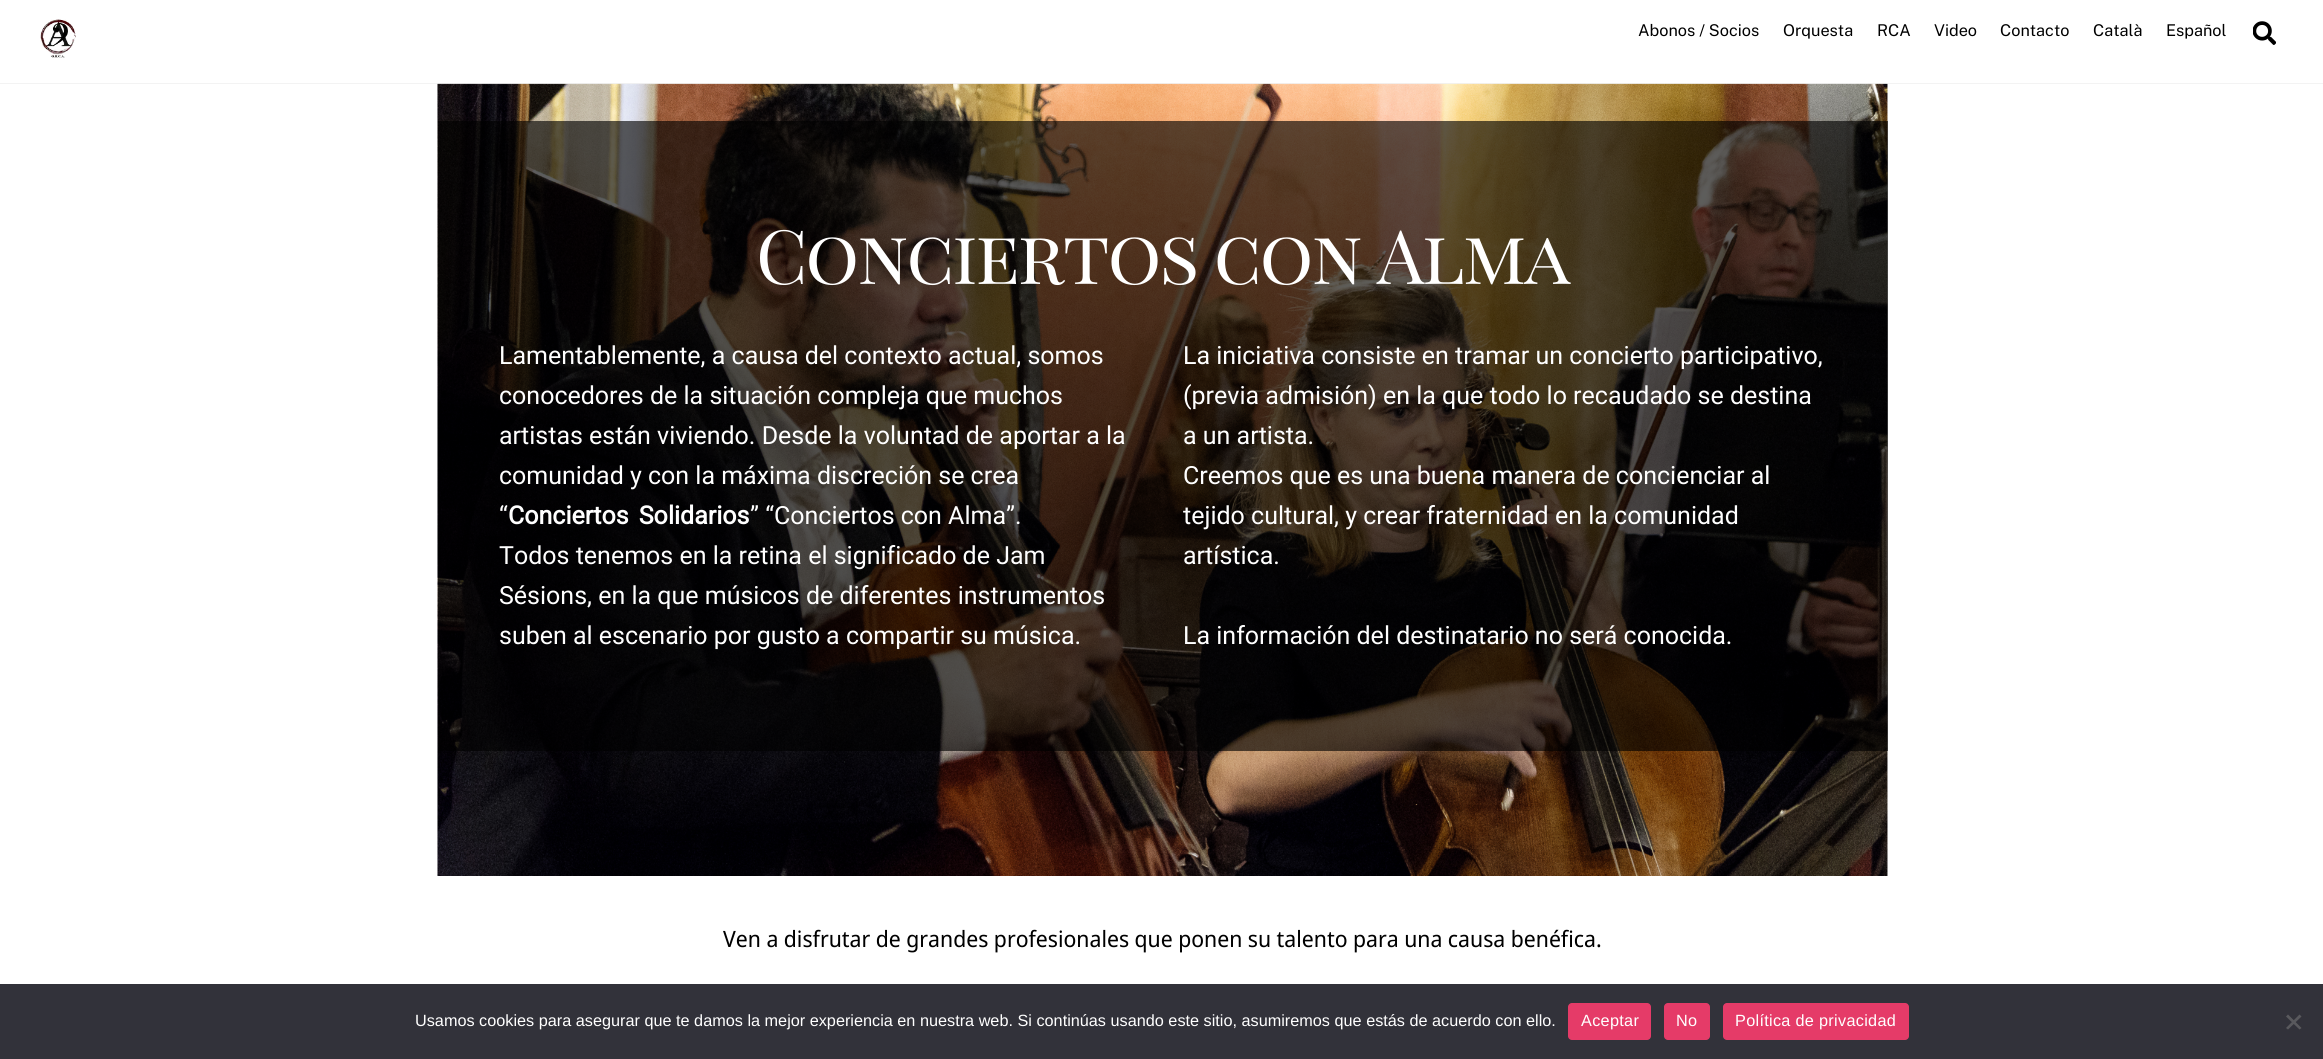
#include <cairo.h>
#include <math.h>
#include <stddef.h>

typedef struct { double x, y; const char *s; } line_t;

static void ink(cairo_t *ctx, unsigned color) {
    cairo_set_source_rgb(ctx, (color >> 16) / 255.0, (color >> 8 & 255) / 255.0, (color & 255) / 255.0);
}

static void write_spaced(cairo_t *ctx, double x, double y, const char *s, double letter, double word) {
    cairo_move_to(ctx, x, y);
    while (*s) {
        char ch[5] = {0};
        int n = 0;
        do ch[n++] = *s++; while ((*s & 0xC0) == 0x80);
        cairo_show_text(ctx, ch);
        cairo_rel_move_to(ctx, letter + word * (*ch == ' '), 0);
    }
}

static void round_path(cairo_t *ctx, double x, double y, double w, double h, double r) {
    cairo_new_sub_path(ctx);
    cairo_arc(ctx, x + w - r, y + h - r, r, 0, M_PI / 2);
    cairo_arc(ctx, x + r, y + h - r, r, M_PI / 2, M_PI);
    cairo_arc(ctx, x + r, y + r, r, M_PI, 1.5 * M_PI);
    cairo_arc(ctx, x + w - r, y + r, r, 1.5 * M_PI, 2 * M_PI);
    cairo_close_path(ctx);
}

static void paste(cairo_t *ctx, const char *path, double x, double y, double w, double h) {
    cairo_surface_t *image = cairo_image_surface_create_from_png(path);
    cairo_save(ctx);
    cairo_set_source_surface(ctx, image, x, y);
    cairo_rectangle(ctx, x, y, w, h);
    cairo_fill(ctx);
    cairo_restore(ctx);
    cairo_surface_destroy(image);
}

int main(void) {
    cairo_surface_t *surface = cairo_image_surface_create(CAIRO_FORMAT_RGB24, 2323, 1059);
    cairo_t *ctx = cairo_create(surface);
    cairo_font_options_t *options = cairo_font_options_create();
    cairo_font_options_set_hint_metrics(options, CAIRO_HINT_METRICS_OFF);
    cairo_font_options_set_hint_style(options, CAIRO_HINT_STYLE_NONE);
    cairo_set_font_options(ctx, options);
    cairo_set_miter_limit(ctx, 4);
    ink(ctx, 0xFFFFFF);
    cairo_paint(ctx);
    paste(ctx, "media/3.png", 437, 83, 1451, 793);
    cairo_set_source_rgba(ctx, 0, 0, 0, 0.05);
    cairo_rectangle(ctx, 0, 83, 2323, 1);
    cairo_fill(ctx);
    paste(ctx, "media/1.png", 40, 19, 36, 39);
    cairo_select_font_face(ctx, "Public Sans", CAIRO_FONT_SLANT_NORMAL, CAIRO_FONT_WEIGHT_NORMAL);
    cairo_set_font_size(ctx, 16.25);
    ink(ctx, 0x000000);
    {
        static const line_t items[] = {
            {1638, 36, "Abonos / Socios"},
            {1783, 36, "Orquesta"},
            {1877, 36, "RCA"},
            {1934, 36, "Video"},
            {2000, 36, "Contacto"},
            {2093, 36, "Català"},
            {2166, 36, "Español"},
        };
        for (size_t i = 0; i < sizeof items / sizeof *items; i++) {
            cairo_move_to(ctx, items[i].x, items[i].y);
            cairo_show_text(ctx, items[i].s);
        }
    }
    paste(ctx, "media/2.png", 2253, 21, 23, 24);
    cairo_set_source_rgba(ctx, 0, 0, 0, 0.63);
    cairo_rectangle(ctx, 438, 121, 1450, 630);
    cairo_fill(ctx);
    cairo_select_font_face(ctx, "Playfair Display SC", CAIRO_FONT_SLANT_NORMAL, CAIRO_FONT_WEIGHT_NORMAL);
    cairo_set_font_size(ctx, 75);
    ink(ctx, 0xFFFFFF);
    write_spaced(ctx, 756, 284, "Conciertos con Alma", -2.25, 0);
    cairo_select_font_face(ctx, "Roboto", CAIRO_FONT_SLANT_NORMAL, CAIRO_FONT_WEIGHT_NORMAL);
    cairo_set_font_size(ctx, 25);
    {
        static const line_t items[] = {
            {499, 364, "Lamentablemente, a causa del contexto actual, somos"},
            {499, 404, "conocedores de la situación compleja que muchos"},
            {499, 444, "artistas están viviendo. Desde la voluntad de aportar a la"},
            {499, 484, "comunidad y con la máxima discreción se crea"},
            {499, 524, "“"},
        };
        for (size_t i = 0; i < sizeof items / sizeof *items; i++) {
            cairo_move_to(ctx, items[i].x, items[i].y);
            cairo_show_text(ctx, items[i].s);
        }
    }
    cairo_select_font_face(ctx, "Roboto", CAIRO_FONT_SLANT_NORMAL, CAIRO_FONT_WEIGHT_BOLD);
    write_spaced(ctx, 508, 524, "Conciertos Solidarios", 0, 4);
    cairo_select_font_face(ctx, "Roboto", CAIRO_FONT_SLANT_NORMAL, CAIRO_FONT_WEIGHT_NORMAL);
    {
        static const line_t items[] = {
            {750, 524, "” “Conciertos con Alma”."},
            {499, 564, "Todos tenemos en la retina el significado de Jam"},
            {499, 604, "Sésions, en la que músicos de diferentes instrumentos"},
            {499, 644, "suben al escenario por gusto a compartir su música."},
            {1183, 364, "La iniciativa consiste en tramar un concierto participativo,"},
            {1183, 404, "(previa admisión) en la que todo lo recaudado se destina"},
            {1183, 444, "a un artista."},
            {1183, 484, "Creemos que es una buena manera de concienciar al"},
            {1183, 524, "tejido cultural, y crear fraternidad en la comunidad"},
            {1183, 564, "artística."},
            {1183, 644, "La información del destinatario no será conocida."},
        };
        for (size_t i = 0; i < sizeof items / sizeof *items; i++) {
            cairo_move_to(ctx, items[i].x, items[i].y);
            cairo_show_text(ctx, items[i].s);
        }
    }
    cairo_select_font_face(ctx, "Noto Sans Display", CAIRO_FONT_SLANT_NORMAL, CAIRO_FONT_WEIGHT_NORMAL);
    cairo_set_font_size(ctx, 22.5);
    ink(ctx, 0x000000);
    cairo_move_to(ctx, 723, 947);
    cairo_show_text(ctx, "Ven a disfrutar de grandes profesionales que ponen su talento para una causa benéfica.");
    ink(ctx, 0x32323A);
    cairo_rectangle(ctx, 0, 984, 2323, 75);
    cairo_fill(ctx);
    cairo_select_font_face(ctx, "Liberation Sans", CAIRO_FONT_SLANT_NORMAL, CAIRO_FONT_WEIGHT_NORMAL);
    cairo_set_font_size(ctx, 16.25);
    ink(ctx, 0xFFFFFF);
    cairo_move_to(ctx, 415, 1026);
    cairo_show_text(ctx, "Usamos cookies para asegurar que te damos la mejor experiencia en nuestra web. Si continúas usando este sitio, asumiremos que estás de acuerdo con ello.");
    ink(ctx, 0xE53B68);
    round_path(ctx, 1568, 1003, 83, 37, 4);
    cairo_fill(ctx);
    ink(ctx, 0xFFFFFF);
    write_spaced(ctx, 1581, 1026, "Aceptar", 0.3, 0);
    ink(ctx, 0xE53B68);
    round_path(ctx, 1664, 1003, 46, 37, 4);
    cairo_fill(ctx);
    ink(ctx, 0xFFFFFF);
    write_spaced(ctx, 1676, 1026, "No", 0.3, 0);
    ink(ctx, 0xE53B68);
    round_path(ctx, 1723, 1003, 186, 37, 4);
    cairo_fill(ctx);
    ink(ctx, 0xFFFFFF);
    write_spaced(ctx, 1735, 1026, "Política de privacidad", 0.3, 0);
    ink(ctx, 0x59595D);
    cairo_new_path(ctx);
    cairo_move_to(ctx, 2299.5, 1014.5);
    cairo_line_to(ctx, 2301.5, 1016.5);
    cairo_line_to(ctx, 2288, 1029.5);
    cairo_line_to(ctx, 2286, 1028);
    cairo_close_path(ctx);
    cairo_fill(ctx);
    cairo_new_path(ctx);
    cairo_move_to(ctx, 2286, 1016.5);
    cairo_line_to(ctx, 2288, 1014.5);
    cairo_line_to(ctx, 2301.5, 1028);
    cairo_line_to(ctx, 2299.5, 1029.5);
    cairo_close_path(ctx);
    cairo_fill(ctx);
    cairo_surface_write_to_png(surface, "image.png");
    cairo_font_options_destroy(options);
    cairo_destroy(ctx);
    cairo_surface_destroy(surface);
    return 0;
}
